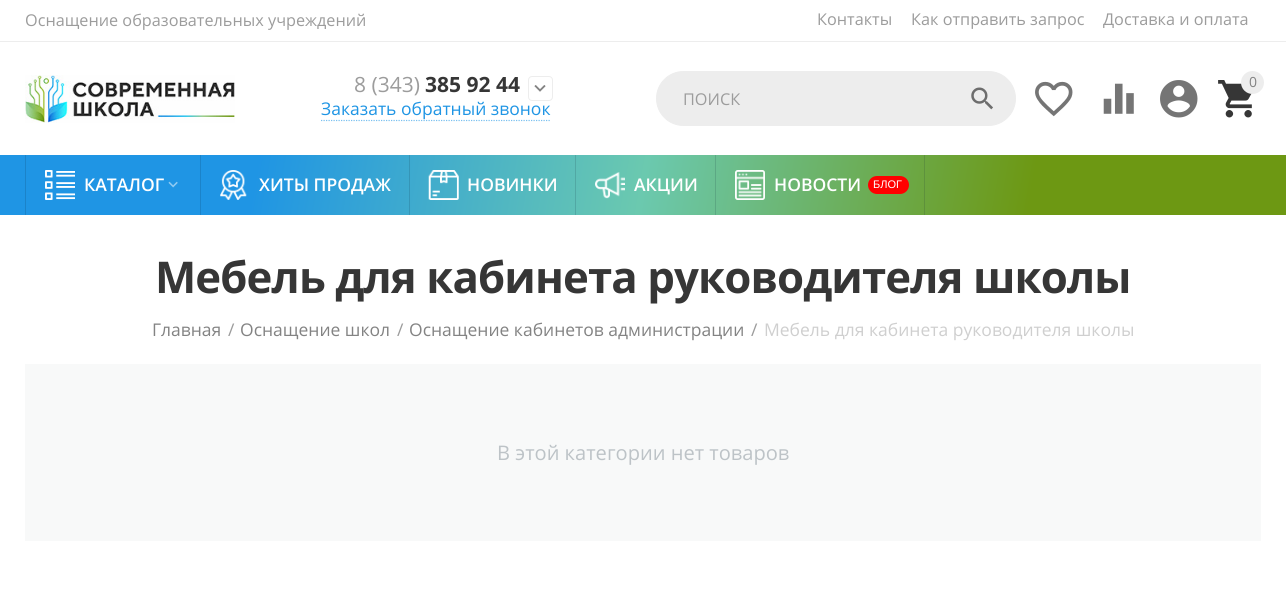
#include <cairo.h>
#include <math.h>
#include <stddef.h>

typedef struct { double x, y; const char *s; } line_t;

static void ink(cairo_t *ctx, unsigned color) {
    cairo_set_source_rgb(ctx, (color >> 16) / 255.0, (color >> 8 & 255) / 255.0, (color & 255) / 255.0);
}

static void write_spaced(cairo_t *ctx, double x, double y, const char *s, double letter, double word) {
    cairo_move_to(ctx, x, y);
    while (*s) {
        char ch[5] = {0};
        int n = 0;
        do ch[n++] = *s++; while ((*s & 0xC0) == 0x80);
        cairo_show_text(ctx, ch);
        cairo_rel_move_to(ctx, letter + word * (*ch == ' '), 0);
    }
}

static void round_path(cairo_t *ctx, double x, double y, double w, double h, double r) {
    cairo_new_sub_path(ctx);
    cairo_arc(ctx, x + w - r, y + h - r, r, 0, M_PI / 2);
    cairo_arc(ctx, x + r, y + h - r, r, M_PI / 2, M_PI);
    cairo_arc(ctx, x + r, y + r, r, M_PI, 1.5 * M_PI);
    cairo_arc(ctx, x + w - r, y + r, r, 1.5 * M_PI, 2 * M_PI);
    cairo_close_path(ctx);
}

static void paste(cairo_t *ctx, const char *path, double x, double y, double w, double h) {
    cairo_surface_t *image = cairo_image_surface_create_from_png(path);
    cairo_save(ctx);
    cairo_set_source_surface(ctx, image, x, y);
    cairo_rectangle(ctx, x, y, w, h);
    cairo_fill(ctx);
    cairo_restore(ctx);
    cairo_surface_destroy(image);
}

int main(void) {
    cairo_surface_t *surface = cairo_image_surface_create(CAIRO_FORMAT_RGB24, 1286, 590);
    cairo_t *ctx = cairo_create(surface);
    cairo_font_options_t *options = cairo_font_options_create();
    cairo_font_options_set_hint_metrics(options, CAIRO_HINT_METRICS_OFF);
    cairo_font_options_set_hint_style(options, CAIRO_HINT_STYLE_NONE);
    cairo_set_font_options(ctx, options);
    cairo_set_miter_limit(ctx, 4);
    cairo_pattern_t *gradient;
    ink(ctx, 0xFFFFFF);
    cairo_paint(ctx);
    ink(ctx, 0xEDEDED);
    cairo_rectangle(ctx, 0, 41, 1286, 1);
    cairo_fill(ctx);
    cairo_select_font_face(ctx, "Open Sans", CAIRO_FONT_SLANT_NORMAL, CAIRO_FONT_WEIGHT_NORMAL);
    cairo_set_font_size(ctx, 16.25);
    ink(ctx, 0x9C9C9C);
    {
        static const line_t items[] = {
            {25, 26, "Оснащение образовательных учреждений"},
            {817, 25, "Контакты"},
            {911, 25, "Как отправить запрос"},
            {1103, 25, "Доставка и оплата"},
        };
        for (size_t i = 0; i < sizeof items / sizeof *items; i++) {
            cairo_move_to(ctx, items[i].x, items[i].y);
            cairo_show_text(ctx, items[i].s);
        }
    }
    paste(ctx, "media/1.png", 25, 75, 210, 48);
    cairo_set_font_size(ctx, 21);
    cairo_move_to(ctx, 354, 92);
    cairo_show_text(ctx, "8 (343)");
    cairo_select_font_face(ctx, "Open Sans", CAIRO_FONT_SLANT_NORMAL, CAIRO_FONT_WEIGHT_BOLD);
    ink(ctx, 0x363636);
    cairo_move_to(ctx, 425, 92);
    cairo_show_text(ctx, "385 92 44");
    round_path(ctx, 528.5, 76.5, 24, 24, 3.5);
    ink(ctx, 0xEDEDED);
    cairo_set_line_width(ctx, 1);
    cairo_stroke(ctx);
    paste(ctx, "media/2.png", 534, 85, 12, 7);
    cairo_new_path(ctx);
    cairo_move_to(ctx, 321, 120.5);
    cairo_line_to(ctx, 551, 120.5);
    ink(ctx, 0x7AC0EF);
    cairo_set_line_width(ctx, 1.2);
    cairo_set_dash(ctx, (double[]){1.25, 1.25}, 2, 0);
    cairo_stroke(ctx);
    cairo_select_font_face(ctx, "Open Sans", CAIRO_FONT_SLANT_NORMAL, CAIRO_FONT_WEIGHT_NORMAL);
    cairo_set_font_size(ctx, 17.5);
    ink(ctx, 0x1F95E4);
    cairo_move_to(ctx, 321, 115);
    cairo_show_text(ctx, "Заказать обратный звонок");
    ink(ctx, 0xEDEDED);
    round_path(ctx, 656.5, 71.5, 359, 54, 27);
    cairo_fill_preserve(ctx);
    cairo_set_line_width(ctx, 1);
    cairo_set_dash(ctx, NULL, 0, 0);
    cairo_stroke(ctx);
    cairo_set_font_size(ctx, 16.25);
    ink(ctx, 0x9C9C9C);
    cairo_move_to(ctx, 683, 105);
    cairo_show_text(ctx, "ПОИСК");
    paste(ctx, "media/3.png", 971, 87, 22, 23);
    paste(ctx, "media/4.png", 1035, 81, 38, 36);
    paste(ctx, "media/5.png", 1103, 83, 31, 31);
    paste(ctx, "media/6.png", 1160, 80, 38, 38);
    paste(ctx, "media/7.png", 1218, 80, 34, 38);
    ink(ctx, 0xEDEDED);
    cairo_arc(ctx, 1252.5, 82.5, 11.5, 0, 2 * M_PI);
    cairo_fill(ctx);
    cairo_set_font_size(ctx, 14);
    ink(ctx, 0x838383);
    cairo_move_to(ctx, 1249, 87);
    cairo_show_text(ctx, "0");
    gradient = cairo_pattern_create_linear(14, 74, 1272, 296);
    cairo_pattern_add_color_stop_rgba(gradient, 0.2, 0.122, 0.584, 0.894, 1);
    cairo_pattern_add_color_stop_rgba(gradient, 0.5, 0.42, 0.788, 0.686, 1);
    cairo_pattern_add_color_stop_rgba(gradient, 0.8, 0.427, 0.596, 0.075, 1);
    cairo_set_source(ctx, gradient);
    cairo_pattern_destroy(gradient);
    cairo_rectangle(ctx, 0, 155, 1286, 60);
    cairo_fill(ctx);
    gradient = cairo_pattern_create_linear(14, 74, 1272, 296);
    cairo_pattern_add_color_stop_rgba(gradient, 0.2, 0.106, 0.514, 0.788, 1);
    cairo_pattern_add_color_stop_rgba(gradient, 0.5, 0.361, 0.69, 0.612, 1);
    cairo_pattern_add_color_stop_rgba(gradient, 0.8, 0.369, 0.525, 0.094, 1);
    cairo_set_source(ctx, gradient);
    cairo_pattern_destroy(gradient);
    cairo_rectangle(ctx, 715, 155, 1, 60);
    cairo_fill(ctx);
    cairo_rectangle(ctx, 924, 155, 1, 60);
    cairo_fill(ctx);
    ink(ctx, 0x1B83C9);
    cairo_rectangle(ctx, 25, 155, 1, 60);
    cairo_fill(ctx);
    paste(ctx, "media/8.png", 45, 170, 30, 30);
    cairo_select_font_face(ctx, "Open Sans SemiBold", CAIRO_FONT_SLANT_NORMAL, CAIRO_FONT_WEIGHT_NORMAL);
    cairo_set_font_size(ctx, 17.5);
    ink(ctx, 0xFFFFFF);
    cairo_move_to(ctx, 84, 191);
    cairo_show_text(ctx, "КАТАЛОГ");
    paste(ctx, "media/9.png", 168, 181, 10, 7);
    ink(ctx, 0x1B83C9);
    cairo_rectangle(ctx, 200, 155, 1, 60);
    cairo_fill(ctx);
    paste(ctx, "media/10.png", 220, 170, 27, 30);
    ink(ctx, 0xFFFFFF);
    cairo_move_to(ctx, 259, 191);
    cairo_show_text(ctx, "ХИТЫ ПРОДАЖ");
    ink(ctx, 0x3595B7);
    cairo_rectangle(ctx, 409, 155, 1, 60);
    cairo_fill(ctx);
    paste(ctx, "media/11.png", 428, 170, 31, 30);
    ink(ctx, 0xFFFFFF);
    cairo_move_to(ctx, 467, 191);
    cairo_show_text(ctx, "НОВИНКИ");
    ink(ctx, 0x51A8A4);
    cairo_rectangle(ctx, 575, 155, 1, 60);
    cairo_fill(ctx);
    paste(ctx, "media/12.png", 595, 172, 30, 27);
    ink(ctx, 0xFFFFFF);
    cairo_move_to(ctx, 634, 191);
    cairo_show_text(ctx, "АКЦИИ");
    paste(ctx, "media/13.png", 735, 170, 30, 30);
    cairo_move_to(ctx, 774, 191);
    cairo_show_text(ctx, "НОВОСТИ");
    ink(ctx, 0xFF0000);
    round_path(ctx, 868, 176, 41, 18, 9);
    cairo_fill(ctx);
    cairo_select_font_face(ctx, "Liberation Sans", CAIRO_FONT_SLANT_NORMAL, CAIRO_FONT_WEIGHT_NORMAL);
    cairo_set_font_size(ctx, 11);
    ink(ctx, 0xFFFFFF);
    cairo_move_to(ctx, 873, 188);
    cairo_show_text(ctx, "БЛОГ");
    cairo_select_font_face(ctx, "Open Sans", CAIRO_FONT_SLANT_NORMAL, CAIRO_FONT_WEIGHT_BOLD);
    cairo_set_font_size(ctx, 43.75);
    ink(ctx, 0x363636);
    write_spaced(ctx, 155, 293, "Мебель для кабинета руководителя школы", -0.9, 0);
    cairo_select_font_face(ctx, "Open Sans", CAIRO_FONT_SLANT_NORMAL, CAIRO_FONT_WEIGHT_NORMAL);
    cairo_set_font_size(ctx, 17.5);
    ink(ctx, 0x838383);
    cairo_move_to(ctx, 152, 336);
    cairo_show_text(ctx, "Главная");
    ink(ctx, 0x9C9C9C);
    cairo_move_to(ctx, 228, 336);
    cairo_show_text(ctx, "/");
    ink(ctx, 0x838383);
    cairo_move_to(ctx, 240, 336);
    cairo_show_text(ctx, "Оснащение школ");
    ink(ctx, 0x9C9C9C);
    cairo_move_to(ctx, 397, 336);
    cairo_show_text(ctx, "/");
    ink(ctx, 0x838383);
    cairo_move_to(ctx, 409, 336);
    cairo_show_text(ctx, "Оснащение кабинетов администрации");
    ink(ctx, 0x9C9C9C);
    cairo_move_to(ctx, 751, 336);
    cairo_show_text(ctx, "/");
    ink(ctx, 0xCFCFCF);
    cairo_move_to(ctx, 764, 336);
    cairo_show_text(ctx, "Мебель для кабинета руководителя школы");
    ink(ctx, 0xF8F9F9);
    cairo_rectangle(ctx, 25, 364, 1236, 177);
    cairo_fill(ctx);
    cairo_set_font_size(ctx, 20.1);
    ink(ctx, 0xBDC3C7);
    cairo_move_to(ctx, 497, 460);
    cairo_show_text(ctx, "В этой категории нет товаров");
    cairo_surface_write_to_png(surface, "image.png");
    cairo_font_options_destroy(options);
    cairo_destroy(ctx);
    cairo_surface_destroy(surface);
    return 0;
}
